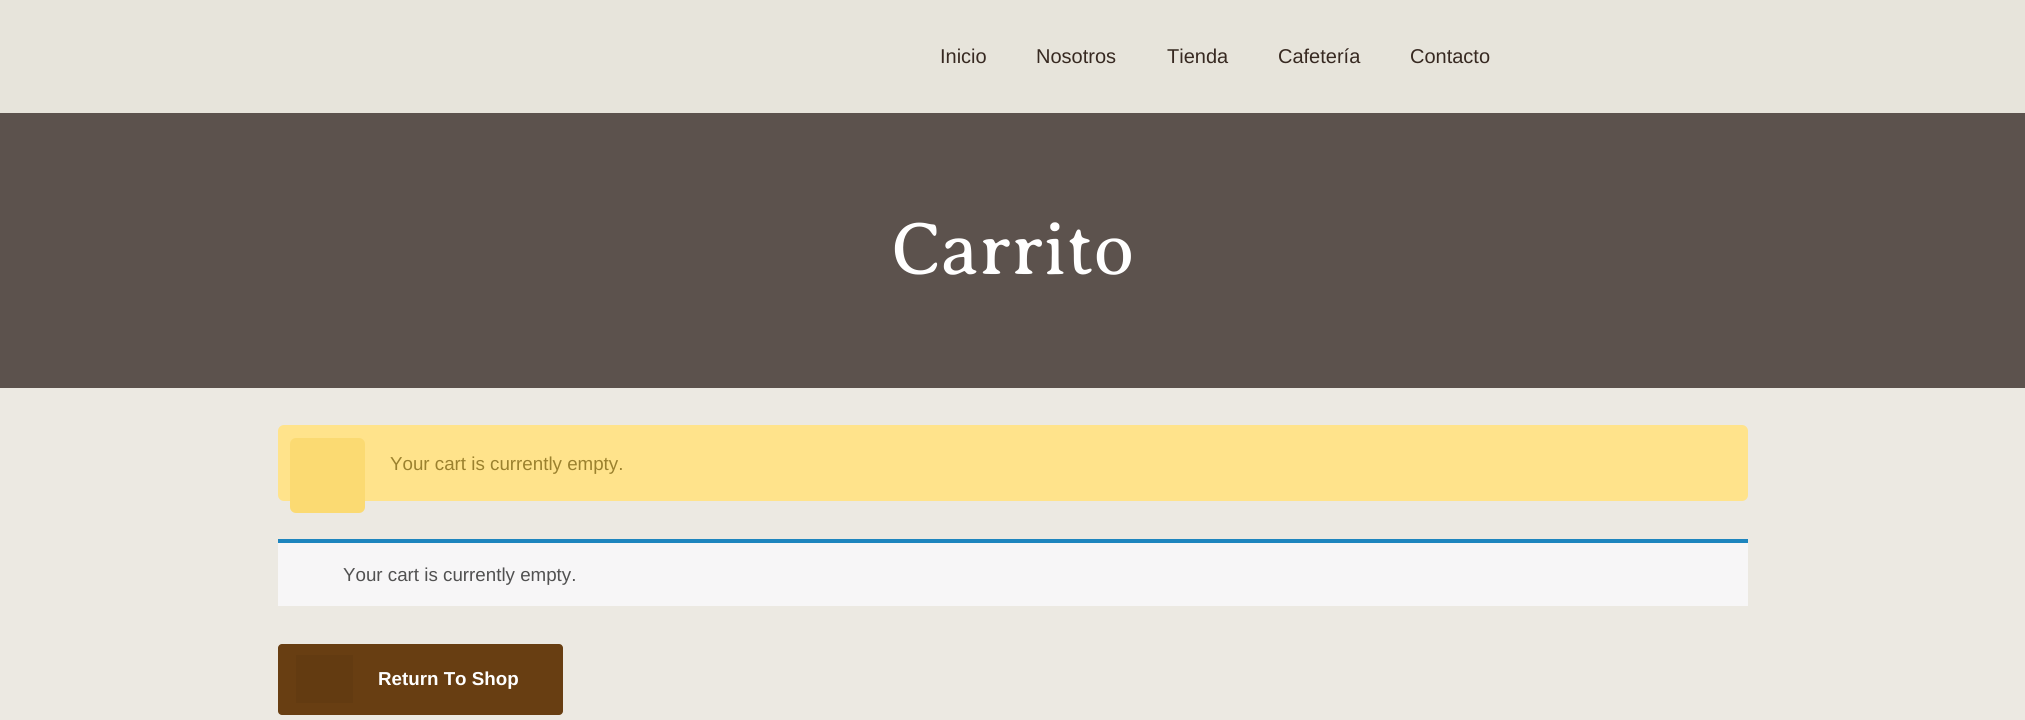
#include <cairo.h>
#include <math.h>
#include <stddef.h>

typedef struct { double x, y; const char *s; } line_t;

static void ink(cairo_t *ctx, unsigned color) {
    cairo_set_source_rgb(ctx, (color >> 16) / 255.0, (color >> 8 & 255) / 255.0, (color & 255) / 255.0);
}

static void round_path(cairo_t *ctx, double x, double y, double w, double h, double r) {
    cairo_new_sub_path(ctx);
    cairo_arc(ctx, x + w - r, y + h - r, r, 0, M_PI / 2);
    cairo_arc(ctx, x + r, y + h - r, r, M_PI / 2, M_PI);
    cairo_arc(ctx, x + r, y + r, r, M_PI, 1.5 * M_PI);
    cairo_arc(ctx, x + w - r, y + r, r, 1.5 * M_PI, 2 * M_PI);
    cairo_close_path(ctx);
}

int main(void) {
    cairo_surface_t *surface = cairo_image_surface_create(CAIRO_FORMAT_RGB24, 2025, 720);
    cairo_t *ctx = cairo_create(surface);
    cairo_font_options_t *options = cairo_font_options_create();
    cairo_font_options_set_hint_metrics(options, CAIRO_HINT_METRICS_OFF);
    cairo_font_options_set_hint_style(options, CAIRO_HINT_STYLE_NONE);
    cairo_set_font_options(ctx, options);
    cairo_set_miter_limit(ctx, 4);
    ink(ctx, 0xECE9E2);
    cairo_paint(ctx);
    ink(ctx, 0x5C524D);
    cairo_rectangle(ctx, 0, 113, 2025, 275);
    cairo_fill(ctx);
    ink(ctx, 0xE7E4DB);
    cairo_rectangle(ctx, 0, 0, 2025, 113);
    cairo_fill(ctx);
    cairo_select_font_face(ctx, "Liberation Sans", CAIRO_FONT_SLANT_NORMAL, CAIRO_FONT_WEIGHT_NORMAL);
    cairo_set_font_size(ctx, 20);
    ink(ctx, 0x372921);
    {
        static const line_t items[] = {
            {940, 63, "Inicio"},
            {1036, 63, "Nosotros"},
            {1167, 63, "Tienda"},
            {1278, 63, "Cafetería"},
            {1410, 63, "Contacto"},
        };
        for (size_t i = 0; i < sizeof items / sizeof *items; i++) {
            cairo_move_to(ctx, items[i].x, items[i].y);
            cairo_show_text(ctx, items[i].s);
        }
    }
    cairo_select_font_face(ctx, "Averia Serif Libre Light", CAIRO_FONT_SLANT_NORMAL, CAIRO_FONT_WEIGHT_NORMAL);
    cairo_set_font_size(ctx, 75);
    ink(ctx, 0xFFFFFF);
    cairo_move_to(ctx, 891, 274);
    cairo_show_text(ctx, "Carrito");
    ink(ctx, 0xFFE38B);
    round_path(ctx, 278, 425, 1470, 76, 6);
    cairo_fill(ctx);
    ink(ctx, 0xFBDA72);
    round_path(ctx, 290, 438, 75, 75, 6);
    cairo_fill(ctx);
    cairo_select_font_face(ctx, "Liberation Sans", CAIRO_FONT_SLANT_NORMAL, CAIRO_FONT_WEIGHT_NORMAL);
    cairo_set_font_size(ctx, 18.75);
    ink(ctx, 0x9B812E);
    cairo_move_to(ctx, 390, 470);
    cairo_show_text(ctx, "Your cart is currently empty.");
    ink(ctx, 0xF7F6F7);
    cairo_rectangle(ctx, 278, 543, 1470, 63);
    cairo_fill(ctx);
    ink(ctx, 0x1E85BE);
    cairo_rectangle(ctx, 278, 539, 1470, 4);
    cairo_fill(ctx);
    ink(ctx, 0x515151);
    cairo_move_to(ctx, 343, 581);
    cairo_show_text(ctx, "Your cart is currently empty.");
    ink(ctx, 0x683E12);
    round_path(ctx, 278, 644, 285, 71, 4);
    cairo_fill(ctx);
    ink(ctx, 0x633B11);
    cairo_rectangle(ctx, 296, 655, 57, 48);
    cairo_fill(ctx);
    cairo_select_font_face(ctx, "Liberation Sans", CAIRO_FONT_SLANT_NORMAL, CAIRO_FONT_WEIGHT_BOLD);
    ink(ctx, 0xFFFFFF);
    cairo_move_to(ctx, 378, 685);
    cairo_show_text(ctx, "Return To Shop");
    cairo_surface_write_to_png(surface, "image.png");
    cairo_font_options_destroy(options);
    cairo_destroy(ctx);
    cairo_surface_destroy(surface);
    return 0;
}
